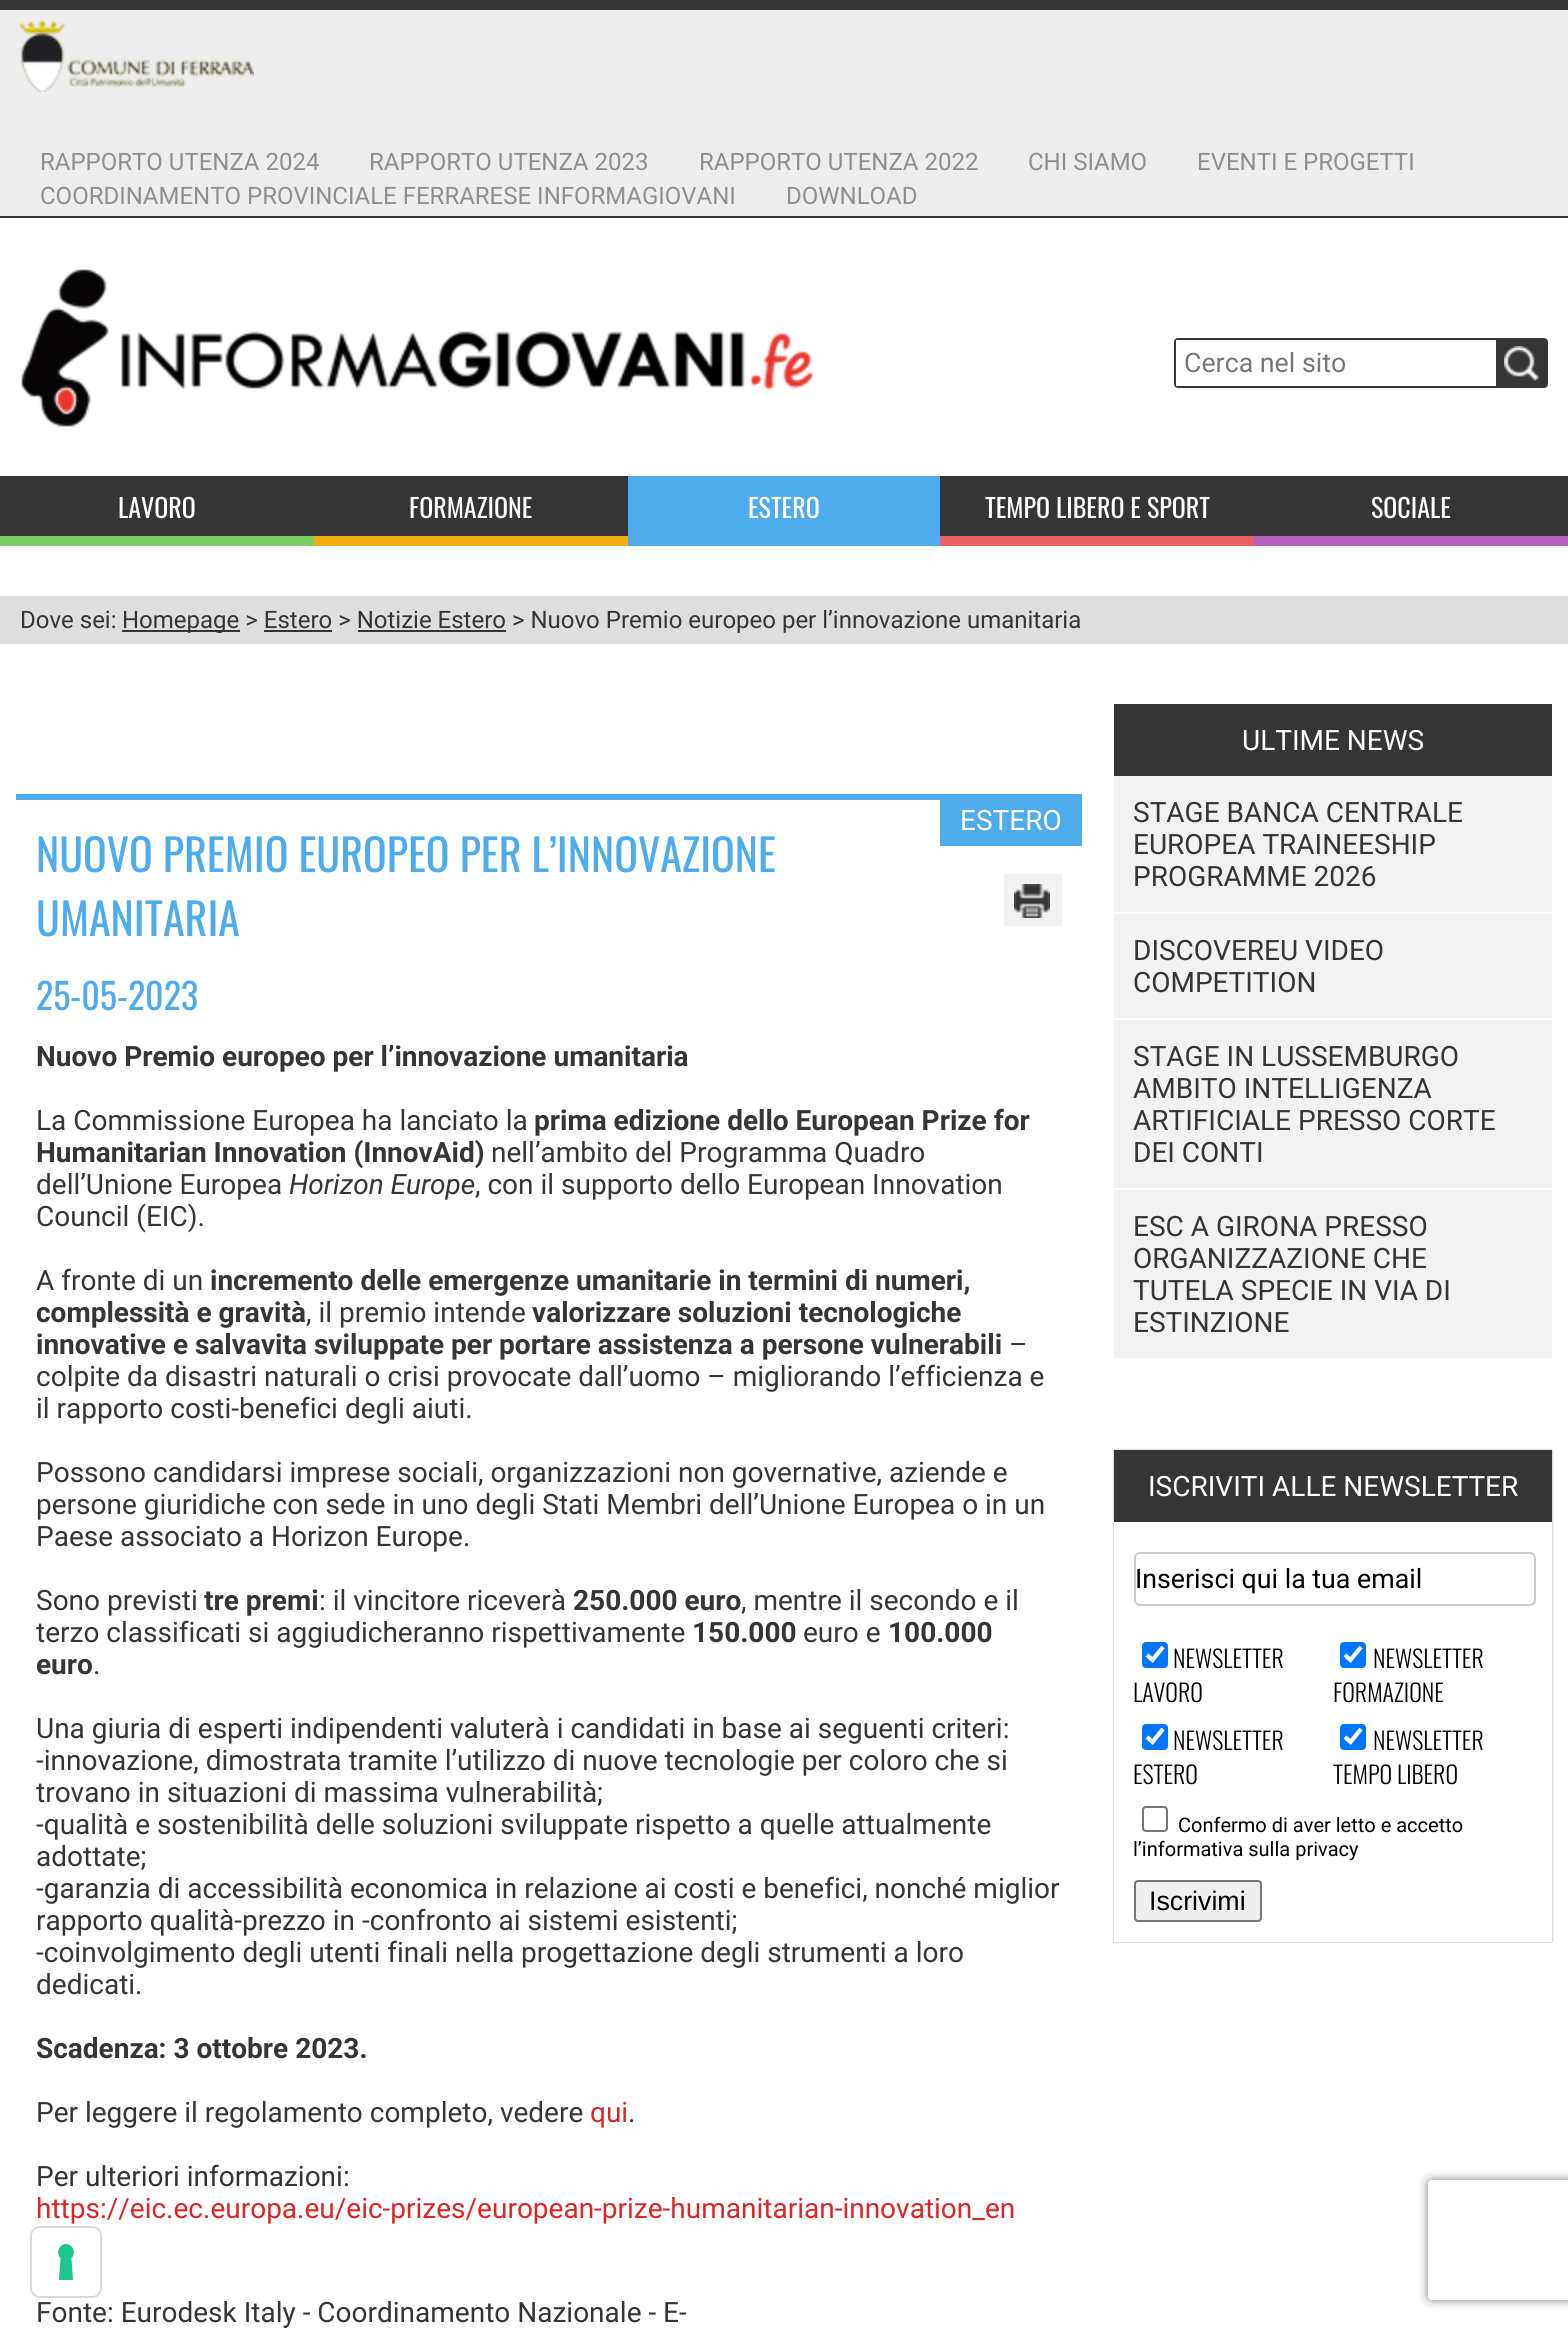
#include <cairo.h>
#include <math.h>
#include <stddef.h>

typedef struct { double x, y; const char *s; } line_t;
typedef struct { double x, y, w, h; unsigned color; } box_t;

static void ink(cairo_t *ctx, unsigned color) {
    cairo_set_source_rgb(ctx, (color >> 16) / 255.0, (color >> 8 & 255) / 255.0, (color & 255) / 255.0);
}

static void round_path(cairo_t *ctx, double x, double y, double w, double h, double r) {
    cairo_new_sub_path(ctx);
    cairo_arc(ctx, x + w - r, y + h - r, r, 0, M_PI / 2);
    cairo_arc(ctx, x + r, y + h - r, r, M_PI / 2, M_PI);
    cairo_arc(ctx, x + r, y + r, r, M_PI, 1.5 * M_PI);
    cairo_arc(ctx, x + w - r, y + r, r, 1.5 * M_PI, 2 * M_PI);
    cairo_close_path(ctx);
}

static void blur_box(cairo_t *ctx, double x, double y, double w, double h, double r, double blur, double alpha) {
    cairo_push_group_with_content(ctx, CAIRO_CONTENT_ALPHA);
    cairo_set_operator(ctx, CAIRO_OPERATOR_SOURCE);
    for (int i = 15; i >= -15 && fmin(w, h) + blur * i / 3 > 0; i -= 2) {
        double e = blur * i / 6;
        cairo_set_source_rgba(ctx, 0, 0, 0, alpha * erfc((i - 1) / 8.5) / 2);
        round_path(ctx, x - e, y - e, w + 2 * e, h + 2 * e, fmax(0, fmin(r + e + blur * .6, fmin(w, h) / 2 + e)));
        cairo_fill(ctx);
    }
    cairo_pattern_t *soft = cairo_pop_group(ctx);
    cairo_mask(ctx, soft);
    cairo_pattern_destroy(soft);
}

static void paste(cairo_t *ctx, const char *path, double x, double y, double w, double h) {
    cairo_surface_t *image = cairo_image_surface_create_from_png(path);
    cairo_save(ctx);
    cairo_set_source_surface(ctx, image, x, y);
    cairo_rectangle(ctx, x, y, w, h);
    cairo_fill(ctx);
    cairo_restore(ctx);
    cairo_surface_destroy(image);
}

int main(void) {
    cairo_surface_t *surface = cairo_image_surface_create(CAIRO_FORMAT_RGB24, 1568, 2328);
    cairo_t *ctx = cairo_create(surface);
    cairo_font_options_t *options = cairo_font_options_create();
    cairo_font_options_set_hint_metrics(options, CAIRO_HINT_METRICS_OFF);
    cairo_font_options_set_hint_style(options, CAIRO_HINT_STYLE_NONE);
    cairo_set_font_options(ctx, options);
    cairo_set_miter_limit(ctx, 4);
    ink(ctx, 0xFFFFFF);
    cairo_paint(ctx);
    {
        static const box_t items[] = {
            {0, 0, 1568, 10, 0x353535},
            {0, 10, 1568, 206, 0xEDEDED},
            {0, 216, 1568, 2, 0x353535},
        };
        for (size_t i = 0; i < sizeof items / sizeof *items; i++) {
            ink(ctx, items[i].color);
            cairo_rectangle(ctx, items[i].x, items[i].y, items[i].w, items[i].h);
            cairo_fill(ctx);
        }
    }
    paste(ctx, "media/1.png", 20, 20, 234, 72);
    cairo_select_font_face(ctx, "Roboto", CAIRO_FONT_SLANT_NORMAL, CAIRO_FONT_WEIGHT_NORMAL);
    cairo_set_font_size(ctx, 24);
    ink(ctx, 0x8F8F8F);
    {
        static const line_t items[] = {
            {40, 170, "RAPPORTO UTENZA 2024"},
            {369, 170, "RAPPORTO UTENZA 2023"},
            {699, 170, "RAPPORTO UTENZA 2022"},
            {1028, 170, "CHI SIAMO"},
            {1197, 170, "EVENTI E PROGETTI"},
            {40, 204, "COORDINAMENTO PROVINCIALE FERRARESE INFORMAGIOVANI"},
            {786, 204, "DOWNLOAD"},
        };
        for (size_t i = 0; i < sizeof items / sizeof *items; i++) {
            cairo_move_to(ctx, items[i].x, items[i].y);
            cairo_show_text(ctx, items[i].s);
        }
    }
    paste(ctx, "media/2.png", 21, 269, 792, 158);
    round_path(ctx, 1175, 339, 372, 48, 3);
    ink(ctx, 0x353535);
    cairo_stroke(ctx);
    ink(ctx, 0xFFFFFF);
    cairo_rectangle(ctx, 1176, 340, 2, 46);
    cairo_fill(ctx);
    cairo_set_font_size(ctx, 26.75);
    ink(ctx, 0x777777);
    cairo_move_to(ctx, 1184, 372);
    cairo_show_text(ctx, "Cerca nel sito");
    ink(ctx, 0x353535);
    cairo_rectangle(ctx, 1496, 340, 50, 46);
    cairo_fill(ctx);
    paste(ctx, "media/3.png", 1504, 346, 36, 36);
    cairo_rectangle(ctx, 0, 476, 628, 60);
    cairo_fill(ctx);
    ink(ctx, 0x7BCF65);
    cairo_rectangle(ctx, 0, 536, 314, 10);
    cairo_fill(ctx);
    cairo_select_font_face(ctx, "Oswald", CAIRO_FONT_SLANT_NORMAL, CAIRO_FONT_WEIGHT_NORMAL);
    cairo_set_font_size(ctx, 26);
    ink(ctx, 0xFFFFFF);
    cairo_move_to(ctx, 118, 518);
    cairo_show_text(ctx, "LAVORO");
    ink(ctx, 0xF3AB11);
    cairo_rectangle(ctx, 314, 536, 314, 10);
    cairo_fill(ctx);
    ink(ctx, 0xFFFFFF);
    cairo_move_to(ctx, 409, 518);
    cairo_show_text(ctx, "FORMAZIONE");
    ink(ctx, 0x4EABEC);
    cairo_rectangle(ctx, 628, 476, 312, 70);
    cairo_fill(ctx);
    ink(ctx, 0xFFFFFF);
    cairo_move_to(ctx, 748, 518);
    cairo_show_text(ctx, "ESTERO");
    ink(ctx, 0x353535);
    cairo_rectangle(ctx, 940, 476, 628, 60);
    cairo_fill(ctx);
    ink(ctx, 0xEA5F5F);
    cairo_rectangle(ctx, 940, 536, 314, 10);
    cairo_fill(ctx);
    ink(ctx, 0xFFFFFF);
    cairo_move_to(ctx, 985, 518);
    cairo_show_text(ctx, "TEMPO LIBERO E SPORT");
    ink(ctx, 0xB560BA);
    cairo_rectangle(ctx, 1254, 536, 314, 10);
    cairo_fill(ctx);
    ink(ctx, 0xFFFFFF);
    cairo_move_to(ctx, 1371, 518);
    cairo_show_text(ctx, "SOCIALE");
    ink(ctx, 0xDEDEDE);
    cairo_rectangle(ctx, 0, 596, 1568, 48);
    cairo_fill(ctx);
    cairo_select_font_face(ctx, "Roboto", CAIRO_FONT_SLANT_NORMAL, CAIRO_FONT_WEIGHT_NORMAL);
    cairo_set_font_size(ctx, 24);
    ink(ctx, 0x353535);
    cairo_move_to(ctx, 20, 628);
    cairo_show_text(ctx, "Dove sei:");
    cairo_rectangle(ctx, 122, 630, 118, 2);
    cairo_fill(ctx);
    cairo_move_to(ctx, 122, 628);
    cairo_show_text(ctx, "Homepage > Estero > Notizie Estero > Nuovo Premio europeo per l’innovazione umanitaria");
    {
        static const box_t items[] = {
            {264, 630, 68, 2, 0x353535},
            {358, 630, 148, 2, 0x353535},
            {940, 794, 142, 52, 0x4EABEC},
        };
        for (size_t i = 0; i < sizeof items / sizeof *items; i++) {
            ink(ctx, items[i].color);
            cairo_rectangle(ctx, items[i].x, items[i].y, items[i].w, items[i].h);
            cairo_fill(ctx);
        }
    }
    cairo_set_font_size(ctx, 28);
    ink(ctx, 0xFFFFFF);
    cairo_move_to(ctx, 960, 830);
    cairo_show_text(ctx, "ESTERO");
    ink(ctx, 0x4EABEC);
    cairo_rectangle(ctx, 16, 794, 924, 6);
    cairo_fill(ctx);
    cairo_select_font_face(ctx, "Oswald", CAIRO_FONT_SLANT_NORMAL, CAIRO_FONT_WEIGHT_NORMAL);
    cairo_set_font_size(ctx, 44);
    cairo_move_to(ctx, 36, 872);
    cairo_show_text(ctx, "NUOVO PREMIO EUROPEO PER L’INNOVAZIONE");
    cairo_move_to(ctx, 36, 936);
    cairo_show_text(ctx, "UMANITARIA");
    ink(ctx, 0xF2F2F2);
    cairo_rectangle(ctx, 1004, 874, 58, 52);
    cairo_fill(ctx);
    paste(ctx, "media/4.png", 1014, 884, 36, 34);
    cairo_set_font_size(ctx, 36);
    ink(ctx, 0x4EABEC);
    cairo_move_to(ctx, 36, 1010);
    cairo_show_text(ctx, "25-05-2023");
    cairo_select_font_face(ctx, "Roboto", CAIRO_FONT_SLANT_NORMAL, CAIRO_FONT_WEIGHT_BOLD);
    cairo_set_font_size(ctx, 28);
    ink(ctx, 0x353535);
    cairo_move_to(ctx, 36, 1066);
    cairo_show_text(ctx, "Nuovo Premio europeo per l’innovazione umanitaria");
    cairo_select_font_face(ctx, "Roboto", CAIRO_FONT_SLANT_NORMAL, CAIRO_FONT_WEIGHT_NORMAL);
    cairo_move_to(ctx, 36, 1130);
    cairo_show_text(ctx, "La Commissione Europea ha lanciato la");
    cairo_select_font_face(ctx, "Roboto", CAIRO_FONT_SLANT_NORMAL, CAIRO_FONT_WEIGHT_BOLD);
    cairo_move_to(ctx, 534, 1130);
    cairo_show_text(ctx, "prima edizione dello European Prize for");
    cairo_move_to(ctx, 36, 1162);
    cairo_show_text(ctx, "Humanitarian Innovation (InnovAid)");
    cairo_select_font_face(ctx, "Roboto", CAIRO_FONT_SLANT_NORMAL, CAIRO_FONT_WEIGHT_NORMAL);
    cairo_move_to(ctx, 491, 1162);
    cairo_show_text(ctx, "nell’ambito del Programma Quadro");
    cairo_move_to(ctx, 36, 1194);
    cairo_show_text(ctx, "dell’Unione Europea");
    cairo_select_font_face(ctx, "Roboto", CAIRO_FONT_SLANT_ITALIC, CAIRO_FONT_WEIGHT_NORMAL);
    cairo_move_to(ctx, 289, 1194);
    cairo_show_text(ctx, "Horizon Europe");
    cairo_select_font_face(ctx, "Roboto", CAIRO_FONT_SLANT_NORMAL, CAIRO_FONT_WEIGHT_NORMAL);
    {
        static const line_t items[] = {
            {475, 1194, ", con il supporto dello European Innovation"},
            {36, 1226, "Council (EIC)."},
            {36, 1290, "A fronte di un"},
        };
        for (size_t i = 0; i < sizeof items / sizeof *items; i++) {
            cairo_move_to(ctx, items[i].x, items[i].y);
            cairo_show_text(ctx, items[i].s);
        }
    }
    cairo_select_font_face(ctx, "Roboto", CAIRO_FONT_SLANT_NORMAL, CAIRO_FONT_WEIGHT_BOLD);
    cairo_move_to(ctx, 210, 1290);
    cairo_show_text(ctx, "incremento delle emergenze umanitarie in termini di numeri,");
    cairo_move_to(ctx, 36, 1322);
    cairo_show_text(ctx, "complessità e gravità");
    cairo_select_font_face(ctx, "Roboto", CAIRO_FONT_SLANT_NORMAL, CAIRO_FONT_WEIGHT_NORMAL);
    cairo_move_to(ctx, 306, 1322);
    cairo_show_text(ctx, ", il premio intende");
    cairo_select_font_face(ctx, "Roboto", CAIRO_FONT_SLANT_NORMAL, CAIRO_FONT_WEIGHT_BOLD);
    cairo_move_to(ctx, 532, 1322);
    cairo_show_text(ctx, "valorizzare soluzioni tecnologiche");
    cairo_move_to(ctx, 36, 1354);
    cairo_show_text(ctx, "innovative e salvavita sviluppate per portare assistenza a persone vulnerabili");
    cairo_select_font_face(ctx, "Roboto", CAIRO_FONT_SLANT_NORMAL, CAIRO_FONT_WEIGHT_NORMAL);
    {
        static const line_t items[] = {
            {1009, 1354, "–"},
            {36, 1386, "colpite da disastri naturali o crisi provocate dall’uomo – migliorando l’efficienza e"},
            {36, 1418, "il rapporto costi-benefici degli aiuti."},
            {36, 1482, "Possono candidarsi imprese sociali, organizzazioni non governative, aziende e"},
            {36, 1514, "persone giuridiche con sede in uno degli Stati Membri dell’Unione Europea o in un"},
            {36, 1546, "Paese associato a Horizon Europe."},
            {36, 1610, "Sono previsti"},
        };
        for (size_t i = 0; i < sizeof items / sizeof *items; i++) {
            cairo_move_to(ctx, items[i].x, items[i].y);
            cairo_show_text(ctx, items[i].s);
        }
    }
    cairo_select_font_face(ctx, "Roboto", CAIRO_FONT_SLANT_NORMAL, CAIRO_FONT_WEIGHT_BOLD);
    cairo_move_to(ctx, 204, 1610);
    cairo_show_text(ctx, "tre premi");
    cairo_select_font_face(ctx, "Roboto", CAIRO_FONT_SLANT_NORMAL, CAIRO_FONT_WEIGHT_NORMAL);
    cairo_move_to(ctx, 319, 1610);
    cairo_show_text(ctx, ": il vincitore riceverà");
    cairo_select_font_face(ctx, "Roboto", CAIRO_FONT_SLANT_NORMAL, CAIRO_FONT_WEIGHT_BOLD);
    cairo_move_to(ctx, 573, 1610);
    cairo_show_text(ctx, "250.000 euro");
    cairo_select_font_face(ctx, "Roboto", CAIRO_FONT_SLANT_NORMAL, CAIRO_FONT_WEIGHT_NORMAL);
    cairo_move_to(ctx, 741, 1610);
    cairo_show_text(ctx, ", mentre il secondo e il");
    cairo_move_to(ctx, 36, 1642);
    cairo_show_text(ctx, "terzo classificati si aggiudicheranno rispettivamente");
    cairo_select_font_face(ctx, "Roboto", CAIRO_FONT_SLANT_NORMAL, CAIRO_FONT_WEIGHT_BOLD);
    cairo_move_to(ctx, 692, 1642);
    cairo_show_text(ctx, "150.000");
    cairo_select_font_face(ctx, "Roboto", CAIRO_FONT_SLANT_NORMAL, CAIRO_FONT_WEIGHT_NORMAL);
    cairo_move_to(ctx, 803, 1642);
    cairo_show_text(ctx, "euro e");
    cairo_select_font_face(ctx, "Roboto", CAIRO_FONT_SLANT_NORMAL, CAIRO_FONT_WEIGHT_BOLD);
    cairo_move_to(ctx, 888, 1642);
    cairo_show_text(ctx, "100.000");
    cairo_move_to(ctx, 36, 1674);
    cairo_show_text(ctx, "euro");
    cairo_select_font_face(ctx, "Roboto", CAIRO_FONT_SLANT_NORMAL, CAIRO_FONT_WEIGHT_NORMAL);
    {
        static const line_t items[] = {
            {93, 1674, "."},
            {36, 1738, "Una giuria di esperti indipendenti valuterà i candidati in base ai seguenti criteri:"},
            {36, 1770, "-innovazione, dimostrata tramite l’utilizzo di nuove tecnologie per coloro che si"},
            {36, 1802, "trovano in situazioni di massima vulnerabilità;"},
            {36, 1834, "-qualità e sostenibilità delle soluzioni sviluppate rispetto a quelle attualmente"},
            {36, 1866, "adottate;"},
            {36, 1898, "-garanzia di accessibilità economica in relazione ai costi e benefici, nonché miglior"},
            {36, 1930, "rapporto qualità-prezzo in -confronto ai sistemi esistenti;"},
            {36, 1962, "-coinvolgimento degli utenti finali nella progettazione degli strumenti a loro"},
            {36, 1994, "dedicati."},
        };
        for (size_t i = 0; i < sizeof items / sizeof *items; i++) {
            cairo_move_to(ctx, items[i].x, items[i].y);
            cairo_show_text(ctx, items[i].s);
        }
    }
    cairo_select_font_face(ctx, "Roboto", CAIRO_FONT_SLANT_NORMAL, CAIRO_FONT_WEIGHT_BOLD);
    cairo_move_to(ctx, 36, 2058);
    cairo_show_text(ctx, "Scadenza: 3 ottobre 2023.");
    cairo_select_font_face(ctx, "Roboto", CAIRO_FONT_SLANT_NORMAL, CAIRO_FONT_WEIGHT_NORMAL);
    cairo_move_to(ctx, 36, 2122);
    cairo_show_text(ctx, "Per leggere il regolamento completo, vedere");
    ink(ctx, 0xDD2526);
    cairo_move_to(ctx, 590, 2122);
    cairo_show_text(ctx, "qui");
    ink(ctx, 0x353535);
    cairo_move_to(ctx, 628, 2122);
    cairo_show_text(ctx, ".");
    cairo_move_to(ctx, 36, 2186);
    cairo_show_text(ctx, "Per ulteriori informazioni:");
    ink(ctx, 0xDD2526);
    cairo_move_to(ctx, 36, 2218);
    cairo_show_text(ctx, "https://eic.ec.europa.eu/eic-prizes/european-prize-humanitarian-innovation_en");
    ink(ctx, 0x353535);
    cairo_move_to(ctx, 36, 2322);
    cairo_show_text(ctx, "Fonte: Eurodesk Italy - Coordinamento Nazionale - E-");
    cairo_rectangle(ctx, 1114, 704, 438, 72);
    cairo_fill(ctx);
    ink(ctx, 0xFFFFFF);
    cairo_move_to(ctx, 1242, 750);
    cairo_show_text(ctx, "ULTIME NEWS");
    ink(ctx, 0xF2F2F2);
    cairo_rectangle(ctx, 1114, 776, 438, 136);
    cairo_fill(ctx);
    ink(ctx, 0x353535);
    {
        static const line_t items[] = {
            {1133, 822, "STAGE BANCA CENTRALE"},
            {1133, 854, "EUROPEA TRAINEESHIP"},
            {1133, 886, "PROGRAMME 2026"},
        };
        for (size_t i = 0; i < sizeof items / sizeof *items; i++) {
            cairo_move_to(ctx, items[i].x, items[i].y);
            cairo_show_text(ctx, items[i].s);
        }
    }
    ink(ctx, 0xF2F2F2);
    cairo_rectangle(ctx, 1114, 914, 438, 104);
    cairo_fill(ctx);
    ink(ctx, 0x353535);
    cairo_move_to(ctx, 1133, 960);
    cairo_show_text(ctx, "DISCOVEREU VIDEO");
    cairo_move_to(ctx, 1133, 992);
    cairo_show_text(ctx, "COMPETITION");
    ink(ctx, 0xF2F2F2);
    cairo_rectangle(ctx, 1114, 1020, 438, 168);
    cairo_fill(ctx);
    ink(ctx, 0x353535);
    {
        static const line_t items[] = {
            {1133, 1066, "STAGE IN LUSSEMBURGO"},
            {1133, 1098, "AMBITO INTELLIGENZA"},
            {1133, 1130, "ARTIFICIALE PRESSO CORTE"},
            {1133, 1162, "DEI CONTI"},
        };
        for (size_t i = 0; i < sizeof items / sizeof *items; i++) {
            cairo_move_to(ctx, items[i].x, items[i].y);
            cairo_show_text(ctx, items[i].s);
        }
    }
    ink(ctx, 0xF2F2F2);
    cairo_rectangle(ctx, 1114, 1190, 438, 168);
    cairo_fill(ctx);
    ink(ctx, 0x353535);
    {
        static const line_t items[] = {
            {1133, 1236, "ESC A GIRONA PRESSO"},
            {1133, 1268, "ORGANIZZAZIONE CHE"},
            {1133, 1300, "TUTELA SPECIE IN VIA DI"},
            {1133, 1332, "ESTINZIONE"},
        };
        for (size_t i = 0; i < sizeof items / sizeof *items; i++) {
            cairo_move_to(ctx, items[i].x, items[i].y);
            cairo_show_text(ctx, items[i].s);
        }
    }
    cairo_save(ctx);
    cairo_set_fill_rule(ctx, CAIRO_FILL_RULE_EVEN_ODD);
    cairo_new_path(ctx);
    cairo_move_to(ctx, 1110, 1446);
    cairo_line_to(ctx, 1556, 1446);
    cairo_line_to(ctx, 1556, 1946);
    cairo_line_to(ctx, 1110, 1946);
    cairo_close_path(ctx);
    cairo_move_to(ctx, 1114, 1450);
    cairo_line_to(ctx, 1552, 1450);
    cairo_line_to(ctx, 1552, 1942);
    cairo_line_to(ctx, 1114, 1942);
    cairo_close_path(ctx);
    cairo_clip(ctx);
    ink(ctx, 0x000000);
    blur_box(ctx, 1114, 1450, 438, 492, 0, 1, 0.4);
    cairo_restore(ctx);
    cairo_rectangle(ctx, 1114, 1450, 438, 72);
    cairo_fill(ctx);
    ink(ctx, 0xFFFFFF);
    cairo_move_to(ctx, 1148, 1496);
    cairo_show_text(ctx, "ISCRIVITI ALLE NEWSLETTER");
    round_path(ctx, 1135, 1553, 400, 52, 5);
    ink(ctx, 0xCCCCCC);
    cairo_stroke(ctx);
    cairo_set_font_size(ctx, 26.75);
    ink(ctx, 0x000000);
    cairo_move_to(ctx, 1135, 1588);
    cairo_show_text(ctx, "Inserisci qui la tua email");
    ink(ctx, 0x0075FF);
    round_path(ctx, 1142, 1642, 26, 26, 4);
    cairo_fill(ctx);
    cairo_new_path(ctx);
    cairo_move_to(ctx, 1147, 1655);
    cairo_line_to(ctx, 1152.5, 1660);
    cairo_line_to(ctx, 1163, 1647);
    ink(ctx, 0xFFFFFF);
    cairo_set_line_width(ctx, 4.2);
    cairo_stroke(ctx);
    cairo_select_font_face(ctx, "Oswald Light", CAIRO_FONT_SLANT_NORMAL, CAIRO_FONT_WEIGHT_NORMAL);
    cairo_set_font_size(ctx, 24);
    ink(ctx, 0x000000);
    cairo_move_to(ctx, 1173, 1668);
    cairo_show_text(ctx, "NEWSLETTER");
    cairo_move_to(ctx, 1133, 1702);
    cairo_show_text(ctx, "LAVORO");
    ink(ctx, 0x0075FF);
    round_path(ctx, 1340, 1642, 26, 26, 4);
    cairo_fill(ctx);
    cairo_new_path(ctx);
    cairo_move_to(ctx, 1345, 1655);
    cairo_line_to(ctx, 1350.5, 1660);
    cairo_line_to(ctx, 1361, 1647);
    ink(ctx, 0xFFFFFF);
    cairo_stroke(ctx);
    ink(ctx, 0x000000);
    cairo_move_to(ctx, 1373, 1668);
    cairo_show_text(ctx, "NEWSLETTER");
    cairo_move_to(ctx, 1333, 1702);
    cairo_show_text(ctx, "FORMAZIONE");
    ink(ctx, 0x0075FF);
    round_path(ctx, 1142, 1724, 26, 26, 4);
    cairo_fill(ctx);
    cairo_new_path(ctx);
    cairo_move_to(ctx, 1147, 1737);
    cairo_line_to(ctx, 1152.5, 1742);
    cairo_line_to(ctx, 1163, 1729);
    ink(ctx, 0xFFFFFF);
    cairo_stroke(ctx);
    ink(ctx, 0x000000);
    cairo_move_to(ctx, 1173, 1750);
    cairo_show_text(ctx, "NEWSLETTER");
    cairo_move_to(ctx, 1133, 1784);
    cairo_show_text(ctx, "ESTERO");
    ink(ctx, 0x0075FF);
    round_path(ctx, 1340, 1724, 26, 26, 4);
    cairo_fill(ctx);
    cairo_new_path(ctx);
    cairo_move_to(ctx, 1345, 1737);
    cairo_line_to(ctx, 1350.5, 1742);
    cairo_line_to(ctx, 1361, 1729);
    ink(ctx, 0xFFFFFF);
    cairo_stroke(ctx);
    ink(ctx, 0x000000);
    cairo_move_to(ctx, 1373, 1750);
    cairo_show_text(ctx, "NEWSLETTER");
    cairo_move_to(ctx, 1333, 1784);
    cairo_show_text(ctx, "TEMPO LIBERO");
    round_path(ctx, 1143, 1807, 24, 24, 3);
    ink(ctx, 0x767676);
    cairo_set_line_width(ctx, 2);
    cairo_stroke(ctx);
    cairo_select_font_face(ctx, "Roboto", CAIRO_FONT_SLANT_NORMAL, CAIRO_FONT_WEIGHT_NORMAL);
    cairo_set_font_size(ctx, 20);
    ink(ctx, 0x000000);
    cairo_move_to(ctx, 1178, 1832);
    cairo_show_text(ctx, "Confermo di aver letto e accetto");
    cairo_move_to(ctx, 1133, 1856);
    cairo_show_text(ctx, "l’informativa sulla privacy");
    ink(ctx, 0xEFEFEF);
    round_path(ctx, 1135, 1881, 126, 40, 3);
    cairo_fill_preserve(ctx);
    ink(ctx, 0x767676);
    cairo_stroke(ctx);
    cairo_select_font_face(ctx, "Liberation Sans", CAIRO_FONT_SLANT_NORMAL, CAIRO_FONT_WEIGHT_NORMAL);
    cairo_set_font_size(ctx, 26.75);
    ink(ctx, 0x000000);
    cairo_move_to(ctx, 1149, 1910);
    cairo_show_text(ctx, "Iscrivimi");
    cairo_save(ctx);
    cairo_set_fill_rule(ctx, CAIRO_FILL_RULE_EVEN_ODD);
    cairo_new_path(ctx);
    cairo_move_to(ctx, 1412, 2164);
    cairo_line_to(ctx, 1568, 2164);
    cairo_line_to(ctx, 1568, 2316);
    cairo_line_to(ctx, 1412, 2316);
    cairo_close_path(ctx);
    cairo_move_to(ctx, 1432, 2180);
    cairo_line_to(ctx, 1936, 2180);
    cairo_curve_to(ctx, 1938, 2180, 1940, 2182, 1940, 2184);
    cairo_line_to(ctx, 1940, 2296);
    cairo_curve_to(ctx, 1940, 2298, 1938, 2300, 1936, 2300);
    cairo_line_to(ctx, 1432, 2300);
    cairo_curve_to(ctx, 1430, 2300, 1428, 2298, 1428, 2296);
    cairo_line_to(ctx, 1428, 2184);
    cairo_curve_to(ctx, 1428, 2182, 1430, 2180, 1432, 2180);
    cairo_close_path(ctx);
    cairo_clip(ctx);
    ink(ctx, 0x808080);
    blur_box(ctx, 1428, 2180, 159, 120, 4, 5, 1);
    cairo_restore(ctx);
    round_path(ctx, 31, 2227, 70, 70, 9);
    ink(ctx, 0xD9D9D9);
    cairo_stroke(ctx);
    ink(ctx, 0xFFFFFF);
    round_path(ctx, 32, 2228, 68, 68, 8);
    cairo_fill(ctx);
    ink(ctx, 0x1CC691);
    cairo_set_fill_rule(ctx, CAIRO_FILL_RULE_EVEN_ODD);
    cairo_new_path(ctx);
    cairo_move_to(ctx, 66, 2244);
    cairo_curve_to(ctx, 73, 2244, 76.5, 2253.5, 71.5, 2258);
    cairo_line_to(ctx, 73, 2280);
    cairo_line_to(ctx, 59, 2280);
    cairo_line_to(ctx, 60.5, 2258);
    cairo_curve_to(ctx, 55.5, 2253.5, 59, 2244, 66, 2244);
    cairo_close_path(ctx);
    cairo_fill(ctx);
    cairo_surface_write_to_png(surface, "image.png");
    cairo_font_options_destroy(options);
    cairo_destroy(ctx);
    cairo_surface_destroy(surface);
    return 0;
}
